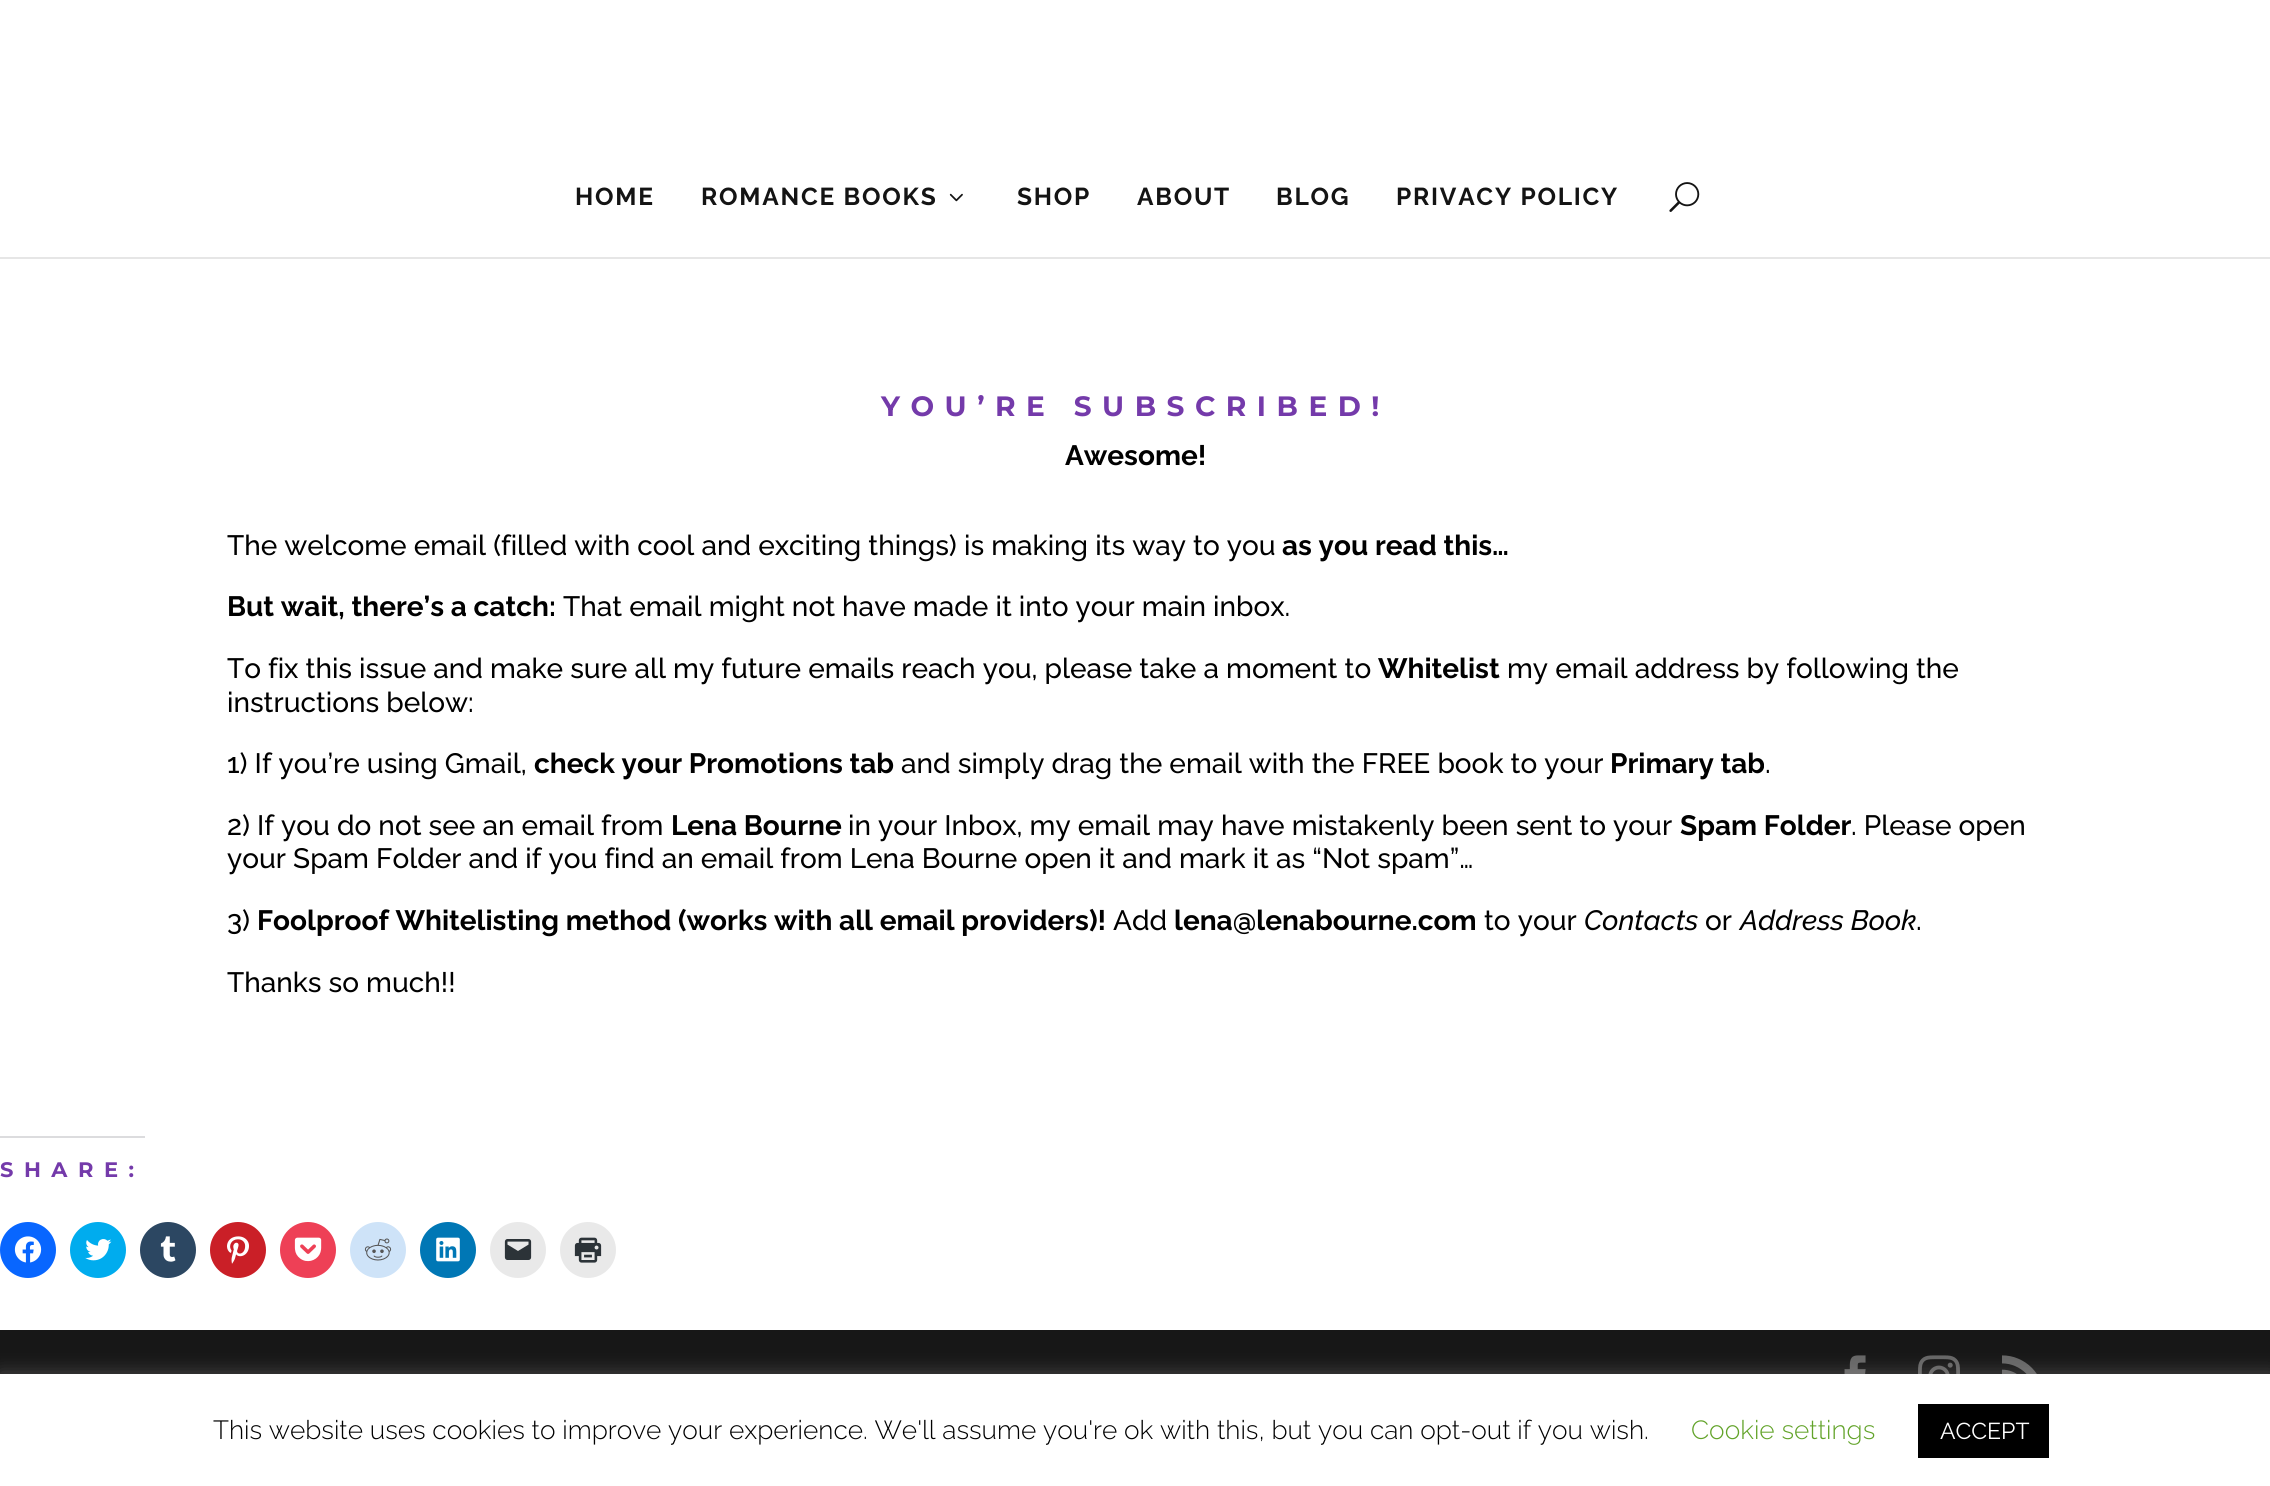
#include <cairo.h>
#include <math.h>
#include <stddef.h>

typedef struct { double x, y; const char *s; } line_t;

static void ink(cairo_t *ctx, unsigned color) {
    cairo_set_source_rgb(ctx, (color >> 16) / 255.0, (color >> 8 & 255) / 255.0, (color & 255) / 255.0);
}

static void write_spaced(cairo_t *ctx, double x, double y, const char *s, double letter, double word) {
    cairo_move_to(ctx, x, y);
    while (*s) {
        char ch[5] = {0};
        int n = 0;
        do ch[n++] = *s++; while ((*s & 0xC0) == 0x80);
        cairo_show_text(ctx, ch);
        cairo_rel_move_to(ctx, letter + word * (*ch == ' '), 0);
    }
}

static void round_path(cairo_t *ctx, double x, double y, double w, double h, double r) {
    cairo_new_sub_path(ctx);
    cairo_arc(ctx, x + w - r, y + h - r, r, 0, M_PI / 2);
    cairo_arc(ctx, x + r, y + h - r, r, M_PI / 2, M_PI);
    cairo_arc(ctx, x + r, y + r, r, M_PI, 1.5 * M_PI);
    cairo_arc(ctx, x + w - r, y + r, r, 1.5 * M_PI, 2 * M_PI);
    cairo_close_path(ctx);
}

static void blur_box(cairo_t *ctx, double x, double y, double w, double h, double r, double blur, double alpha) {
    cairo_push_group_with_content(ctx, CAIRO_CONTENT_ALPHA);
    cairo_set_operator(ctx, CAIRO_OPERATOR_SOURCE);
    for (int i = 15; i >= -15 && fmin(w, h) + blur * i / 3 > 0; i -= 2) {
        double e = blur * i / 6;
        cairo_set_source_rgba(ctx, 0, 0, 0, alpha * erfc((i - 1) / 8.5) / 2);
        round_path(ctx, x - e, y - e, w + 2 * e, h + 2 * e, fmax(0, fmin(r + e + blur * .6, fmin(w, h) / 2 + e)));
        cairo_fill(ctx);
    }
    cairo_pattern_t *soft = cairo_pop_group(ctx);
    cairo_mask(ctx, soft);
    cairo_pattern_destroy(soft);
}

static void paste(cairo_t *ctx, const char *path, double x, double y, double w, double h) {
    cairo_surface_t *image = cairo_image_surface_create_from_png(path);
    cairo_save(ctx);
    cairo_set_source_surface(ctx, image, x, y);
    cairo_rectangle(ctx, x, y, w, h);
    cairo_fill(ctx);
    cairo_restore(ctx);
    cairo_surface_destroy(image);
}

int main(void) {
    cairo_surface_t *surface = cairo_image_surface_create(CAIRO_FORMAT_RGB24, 2270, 1486);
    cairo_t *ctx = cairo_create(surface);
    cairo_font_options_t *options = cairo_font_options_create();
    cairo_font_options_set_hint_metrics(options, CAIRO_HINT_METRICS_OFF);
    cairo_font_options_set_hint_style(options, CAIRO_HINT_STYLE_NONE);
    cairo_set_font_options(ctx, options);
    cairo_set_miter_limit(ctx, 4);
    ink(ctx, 0xFFFFFF);
    cairo_paint(ctx);
    ink(ctx, 0xE6E6E6);
    cairo_new_path(ctx);
    cairo_move_to(ctx, 0, 257);
    cairo_line_to(ctx, 0, 259);
    cairo_line_to(ctx, 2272, 259);
    cairo_line_to(ctx, 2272, 2);
    cairo_line_to(ctx, 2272, 257);
    cairo_close_path(ctx);
    cairo_fill(ctx);
    cairo_select_font_face(ctx, "Raleway Thin", CAIRO_FONT_SLANT_NORMAL, CAIRO_FONT_WEIGHT_NORMAL);
    cairo_set_font_size(ctx, 24.5);
    ink(ctx, 0x141414);
    write_spaced(ctx, 575, 205, "HOME", 1.75, 0);
    write_spaced(ctx, 701, 205, "ROMANCE BOOKS", 1.75, 0);
    paste(ctx, "media/1.png", 949, 193, 14, 9);
    {
        static const line_t items[] = {
            {1017, 205, "SHOP"},
            {1137, 205, "ABOUT"},
            {1276, 205, "BLOG"},
            {1396, 205, "PRIVACY POLICY"},
        };
        for (size_t i = 0; i < sizeof items / sizeof *items; i++) {
            write_spaced(ctx, items[i].x, items[i].y, items[i].s, 1.75, 0);
        }
    }
    paste(ctx, "media/2.png", 1669, 182, 31, 30);
    cairo_select_font_face(ctx, "Montserrat Thin", CAIRO_FONT_SLANT_NORMAL, CAIRO_FONT_WEIGHT_NORMAL);
    cairo_set_font_size(ctx, 28);
    ink(ctx, 0x743AAA);
    write_spaced(ctx, 881, 416, "YOU’RE SUBSCRIBED!", 10.5, 0);
    cairo_select_font_face(ctx, "Raleway Thin", CAIRO_FONT_SLANT_NORMAL, CAIRO_FONT_WEIGHT_NORMAL);
    ink(ctx, 0x000000);
    cairo_move_to(ctx, 1065, 465);
    cairo_show_text(ctx, "Awesome!");
    cairo_select_font_face(ctx, "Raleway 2 Thin", CAIRO_FONT_SLANT_NORMAL, CAIRO_FONT_WEIGHT_NORMAL);
    cairo_move_to(ctx, 227, 555);
    cairo_show_text(ctx, "The welcome email (filled with cool and exciting things)");
    cairo_move_to(ctx, 964, 555);
    cairo_show_text(ctx, "is making its way to you");
    cairo_select_font_face(ctx, "Raleway Thin", CAIRO_FONT_SLANT_NORMAL, CAIRO_FONT_WEIGHT_NORMAL);
    cairo_move_to(ctx, 1282, 555);
    cairo_show_text(ctx, "as you read this…");
    cairo_move_to(ctx, 227, 616);
    cairo_show_text(ctx, "But wait, there’s a catch:");
    cairo_select_font_face(ctx, "Raleway 2 Thin", CAIRO_FONT_SLANT_NORMAL, CAIRO_FONT_WEIGHT_NORMAL);
    cairo_move_to(ctx, 563, 616);
    cairo_show_text(ctx, "That email might not have made it into your main inbox.");
    cairo_move_to(ctx, 227, 678);
    cairo_show_text(ctx, "To fix this issue and make sure all my future emails reach you, please take a moment to");
    cairo_select_font_face(ctx, "Raleway Thin", CAIRO_FONT_SLANT_NORMAL, CAIRO_FONT_WEIGHT_NORMAL);
    cairo_move_to(ctx, 1378, 678);
    cairo_show_text(ctx, "Whitelist");
    cairo_select_font_face(ctx, "Raleway 2 Thin", CAIRO_FONT_SLANT_NORMAL, CAIRO_FONT_WEIGHT_NORMAL);
    {
        static const line_t items[] = {
            {1507, 678, "my email address by following the"},
            {227, 712, "instructions below:"},
            {227, 773, "1) If you’re using Gmail,"},
        };
        for (size_t i = 0; i < sizeof items / sizeof *items; i++) {
            cairo_move_to(ctx, items[i].x, items[i].y);
            cairo_show_text(ctx, items[i].s);
        }
    }
    cairo_select_font_face(ctx, "Raleway Thin", CAIRO_FONT_SLANT_NORMAL, CAIRO_FONT_WEIGHT_NORMAL);
    cairo_move_to(ctx, 534, 773);
    cairo_show_text(ctx, "check your Promotions tab");
    cairo_select_font_face(ctx, "Raleway 2 Thin", CAIRO_FONT_SLANT_NORMAL, CAIRO_FONT_WEIGHT_NORMAL);
    cairo_move_to(ctx, 901, 773);
    cairo_show_text(ctx, "and simply drag the email with the FREE book to your");
    cairo_select_font_face(ctx, "Raleway Thin", CAIRO_FONT_SLANT_NORMAL, CAIRO_FONT_WEIGHT_NORMAL);
    cairo_move_to(ctx, 1610, 773);
    cairo_show_text(ctx, "Primary tab");
    cairo_select_font_face(ctx, "Raleway 2 Thin", CAIRO_FONT_SLANT_NORMAL, CAIRO_FONT_WEIGHT_NORMAL);
    cairo_move_to(ctx, 1765, 773);
    cairo_show_text(ctx, ".");
    cairo_move_to(ctx, 227, 835);
    cairo_show_text(ctx, "2) If you do not see an email from");
    cairo_select_font_face(ctx, "Raleway Thin", CAIRO_FONT_SLANT_NORMAL, CAIRO_FONT_WEIGHT_NORMAL);
    cairo_move_to(ctx, 671, 835);
    cairo_show_text(ctx, "Lena Bourne");
    cairo_select_font_face(ctx, "Raleway 2 Thin", CAIRO_FONT_SLANT_NORMAL, CAIRO_FONT_WEIGHT_NORMAL);
    cairo_move_to(ctx, 848, 835);
    cairo_show_text(ctx, "in your Inbox, my email may have mistakenly been sent to your");
    cairo_select_font_face(ctx, "Raleway Thin", CAIRO_FONT_SLANT_NORMAL, CAIRO_FONT_WEIGHT_NORMAL);
    cairo_move_to(ctx, 1680, 835);
    cairo_show_text(ctx, "Spam Folder");
    cairo_select_font_face(ctx, "Raleway 2 Thin", CAIRO_FONT_SLANT_NORMAL, CAIRO_FONT_WEIGHT_NORMAL);
    {
        static const line_t items[] = {
            {1851, 835, ". Please open"},
            {227, 868, "your Spam Folder and if you find an email from Lena Bourne open it and mark it as “Not spam”…"},
            {227, 930, "3)"},
        };
        for (size_t i = 0; i < sizeof items / sizeof *items; i++) {
            cairo_move_to(ctx, items[i].x, items[i].y);
            cairo_show_text(ctx, items[i].s);
        }
    }
    cairo_select_font_face(ctx, "Raleway Thin", CAIRO_FONT_SLANT_NORMAL, CAIRO_FONT_WEIGHT_NORMAL);
    cairo_move_to(ctx, 257, 930);
    cairo_show_text(ctx, "Foolproof Whitelisting method (works with all email providers)!");
    cairo_select_font_face(ctx, "Raleway 2 Thin", CAIRO_FONT_SLANT_NORMAL, CAIRO_FONT_WEIGHT_NORMAL);
    cairo_move_to(ctx, 1113, 930);
    cairo_show_text(ctx, "Add");
    cairo_select_font_face(ctx, "Raleway Thin", CAIRO_FONT_SLANT_NORMAL, CAIRO_FONT_WEIGHT_NORMAL);
    cairo_move_to(ctx, 1174, 930);
    cairo_show_text(ctx, "lena@lenabourne.com");
    cairo_select_font_face(ctx, "Raleway 2 Thin", CAIRO_FONT_SLANT_NORMAL, CAIRO_FONT_WEIGHT_NORMAL);
    cairo_move_to(ctx, 1484, 930);
    cairo_show_text(ctx, "to your");
    cairo_select_font_face(ctx, "Raleway Thin", CAIRO_FONT_SLANT_ITALIC, CAIRO_FONT_WEIGHT_NORMAL);
    cairo_move_to(ctx, 1584, 930);
    cairo_show_text(ctx, "Contacts");
    cairo_select_font_face(ctx, "Raleway 2 Thin", CAIRO_FONT_SLANT_NORMAL, CAIRO_FONT_WEIGHT_NORMAL);
    cairo_move_to(ctx, 1705, 930);
    cairo_show_text(ctx, "or");
    cairo_select_font_face(ctx, "Raleway Thin", CAIRO_FONT_SLANT_ITALIC, CAIRO_FONT_WEIGHT_NORMAL);
    cairo_move_to(ctx, 1740, 930);
    cairo_show_text(ctx, "Address Book");
    cairo_select_font_face(ctx, "Raleway 2 Thin", CAIRO_FONT_SLANT_NORMAL, CAIRO_FONT_WEIGHT_NORMAL);
    cairo_move_to(ctx, 1916, 930);
    cairo_show_text(ctx, ".");
    cairo_move_to(ctx, 227, 992);
    cairo_show_text(ctx, "Thanks so much!!");
    ink(ctx, 0xDCDCDE);
    cairo_rectangle(ctx, 0, 1136, 145, 2);
    cairo_fill(ctx);
    cairo_select_font_face(ctx, "Montserrat Thin", CAIRO_FONT_SLANT_NORMAL, CAIRO_FONT_WEIGHT_NORMAL);
    cairo_set_font_size(ctx, 21);
    ink(ctx, 0x743AAA);
    write_spaced(ctx, 0, 1177, "SHARE:", 10.5, 0);
    ink(ctx, 0x0866FF);
    cairo_new_path(ctx);
    cairo_arc(ctx, 28, 1250, 28, 0, 2 * M_PI);
    cairo_fill(ctx);
    paste(ctx, "media/3.png", 14, 1236, 28, 27);
    ink(ctx, 0x00ACEE);
    cairo_arc(ctx, 98, 1250, 28, 0, 2 * M_PI);
    cairo_fill(ctx);
    paste(ctx, "media/4.png", 85, 1239, 27, 22);
    ink(ctx, 0x2C4762);
    cairo_arc(ctx, 168, 1250, 28, 0, 2 * M_PI);
    cairo_fill(ctx);
    paste(ctx, "media/5.png", 160, 1236, 16, 26);
    ink(ctx, 0xCA1F27);
    cairo_arc(ctx, 238, 1250, 28, 0, 2 * M_PI);
    cairo_fill(ctx);
    paste(ctx, "media/6.png", 227, 1236, 22, 28);
    ink(ctx, 0xEE4056);
    cairo_arc(ctx, 308, 1250, 28, 0, 2 * M_PI);
    cairo_fill(ctx);
    paste(ctx, "media/7.png", 294, 1237, 28, 25);
    ink(ctx, 0xCEE3F8);
    cairo_arc(ctx, 378, 1250, 28, 0, 2 * M_PI);
    cairo_fill(ctx);
    paste(ctx, "media/8.png", 364, 1238, 28, 23);
    ink(ctx, 0x0077B5);
    cairo_arc(ctx, 448, 1250, 28, 0, 2 * M_PI);
    cairo_fill(ctx);
    paste(ctx, "media/9.png", 436, 1237, 24, 25);
    ink(ctx, 0xE9E9E9);
    cairo_arc(ctx, 518, 1250, 28, 0, 2 * M_PI);
    cairo_fill(ctx);
    paste(ctx, "media/10.png", 504, 1239, 28, 21);
    cairo_arc(ctx, 588, 1250, 28, 0, 2 * M_PI);
    cairo_fill(ctx);
    paste(ctx, "media/11.png", 574, 1237, 28, 26);
    ink(ctx, 0x171717);
    cairo_rectangle(ctx, 0, 1330, 2270, 44);
    cairo_fill(ctx);
    paste(ctx, "media/12.png", 1844, 1355, 22, 19);
    paste(ctx, "media/13.png", 1918, 1355, 42, 19);
    paste(ctx, "media/14.png", 2002, 1355, 35, 19);
    ink(ctx, 0xACABAB);
    blur_box(ctx, 0, 1372, 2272, 114, 0, 9, 0.3);
    ink(ctx, 0xFFFFFF);
    cairo_rectangle(ctx, 0, 1374, 2270, 112);
    cairo_fill(ctx);
    cairo_select_font_face(ctx, "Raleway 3 Thin", CAIRO_FONT_SLANT_NORMAL, CAIRO_FONT_WEIGHT_NORMAL);
    cairo_set_font_size(ctx, 26.25);
    ink(ctx, 0x000000);
    cairo_move_to(ctx, 213, 1439);
    cairo_show_text(ctx, "This website uses cookies to improve your experience. We'll assume you're ok with this, but you can opt-out if you wish.");
    ink(ctx, 0x62A329);
    cairo_move_to(ctx, 1691, 1439);
    cairo_show_text(ctx, "Cookie settings");
    ink(ctx, 0x000000);
    cairo_rectangle(ctx, 1918, 1404, 131, 54);
    cairo_fill(ctx);
    cairo_select_font_face(ctx, "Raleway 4 Thin", CAIRO_FONT_SLANT_NORMAL, CAIRO_FONT_WEIGHT_NORMAL);
    cairo_set_font_size(ctx, 23);
    ink(ctx, 0xFFFFFF);
    cairo_move_to(ctx, 1940, 1439);
    cairo_show_text(ctx, "ACCEPT");
    cairo_surface_write_to_png(surface, "image.png");
    cairo_font_options_destroy(options);
    cairo_destroy(ctx);
    cairo_surface_destroy(surface);
    return 0;
}
